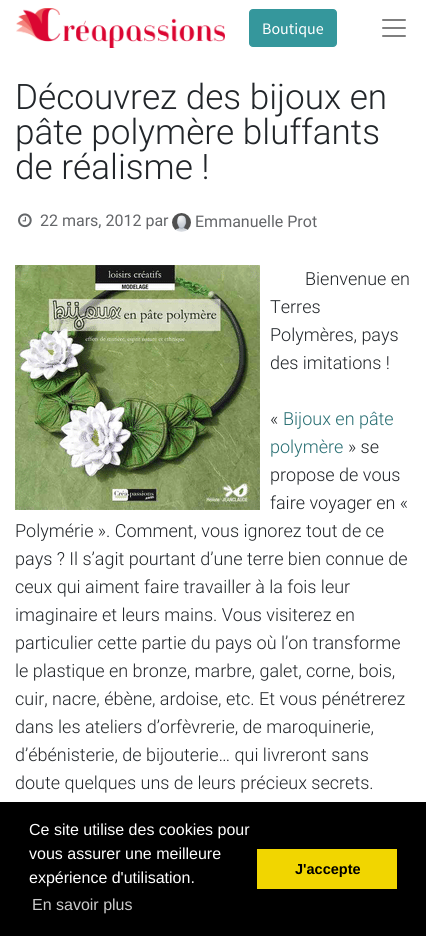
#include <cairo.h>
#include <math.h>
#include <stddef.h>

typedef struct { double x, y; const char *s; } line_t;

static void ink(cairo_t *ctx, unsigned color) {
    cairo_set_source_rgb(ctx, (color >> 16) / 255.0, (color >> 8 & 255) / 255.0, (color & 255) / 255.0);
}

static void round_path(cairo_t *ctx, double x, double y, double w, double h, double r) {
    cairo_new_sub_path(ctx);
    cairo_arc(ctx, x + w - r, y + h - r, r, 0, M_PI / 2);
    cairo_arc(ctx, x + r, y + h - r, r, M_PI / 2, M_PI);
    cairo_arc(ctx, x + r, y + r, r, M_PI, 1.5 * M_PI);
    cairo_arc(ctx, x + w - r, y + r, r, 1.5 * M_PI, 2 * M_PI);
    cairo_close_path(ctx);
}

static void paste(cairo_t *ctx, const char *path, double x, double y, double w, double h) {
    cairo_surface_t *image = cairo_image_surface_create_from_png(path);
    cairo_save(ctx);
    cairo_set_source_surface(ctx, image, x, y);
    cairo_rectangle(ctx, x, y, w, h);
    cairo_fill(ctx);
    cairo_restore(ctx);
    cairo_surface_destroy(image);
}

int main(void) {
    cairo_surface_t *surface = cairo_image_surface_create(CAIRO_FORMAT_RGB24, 426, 936);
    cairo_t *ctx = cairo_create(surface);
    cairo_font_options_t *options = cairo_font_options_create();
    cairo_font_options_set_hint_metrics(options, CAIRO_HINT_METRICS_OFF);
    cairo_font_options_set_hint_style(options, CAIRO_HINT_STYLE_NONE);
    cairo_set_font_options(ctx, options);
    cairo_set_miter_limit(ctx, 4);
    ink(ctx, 0xFFFFFF);
    cairo_paint(ctx);
    paste(ctx, "media/1.png", 16, 8, 209, 40);
    ink(ctx, 0x35979C);
    round_path(ctx, 249.5, 9.5, 87, 37, 3.5);
    cairo_fill_preserve(ctx);
    cairo_set_line_width(ctx, 1);
    cairo_stroke(ctx);
    cairo_select_font_face(ctx, "Source Sans Pro", CAIRO_FONT_SLANT_NORMAL, CAIRO_FONT_WEIGHT_NORMAL);
    cairo_set_font_size(ctx, 16);
    ink(ctx, 0xFFFFFF);
    cairo_move_to(ctx, 262, 34);
    cairo_show_text(ctx, "Boutique");
    paste(ctx, "media/2.png", 382, 19, 24, 18);
    cairo_select_font_face(ctx, "Roboto Light", CAIRO_FONT_SLANT_NORMAL, CAIRO_FONT_WEIGHT_NORMAL);
    cairo_set_font_size(ctx, 35.1);
    ink(ctx, 0x212529);
    {
        static const line_t items[] = {
            {15, 109, "Découvrez des bijoux en"},
            {15, 144, "pâte polymère bluffants"},
            {15, 179, "de réalisme !"},
        };
        for (size_t i = 0; i < sizeof items / sizeof *items; i++) {
            cairo_move_to(ctx, items[i].x, items[i].y);
            cairo_show_text(ctx, items[i].s);
        }
    }
    paste(ctx, "media/3.png", 18, 213, 14, 15);
    cairo_select_font_face(ctx, "Roboto", CAIRO_FONT_SLANT_NORMAL, CAIRO_FONT_WEIGHT_NORMAL);
    cairo_set_font_size(ctx, 16);
    ink(ctx, 0x646669);
    cairo_move_to(ctx, 40, 226);
    cairo_show_text(ctx, "22 mars, 2012 par");
    paste(ctx, "media/4.png", 172, 213, 19, 19);
    cairo_move_to(ctx, 195, 227);
    cairo_show_text(ctx, "Emmanuelle Prot");
    paste(ctx, "media/5.png", 15, 265, 245, 245);
    cairo_select_font_face(ctx, "Roboto Light", CAIRO_FONT_SLANT_NORMAL, CAIRO_FONT_WEIGHT_NORMAL);
    cairo_set_font_size(ctx, 18);
    ink(ctx, 0x212529);
    {
        static const line_t items[] = {
            {305, 285, "Bienvenue en"},
            {270, 313, "Terres"},
            {270, 341, "Polymères, pays"},
            {270, 369, "des imitations !"},
            {270, 425, "«"},
        };
        for (size_t i = 0; i < sizeof items / sizeof *items; i++) {
            cairo_move_to(ctx, items[i].x, items[i].y);
            cairo_show_text(ctx, items[i].s);
        }
    }
    ink(ctx, 0x276E72);
    cairo_move_to(ctx, 283, 425);
    cairo_show_text(ctx, "Bijoux en pâte");
    cairo_move_to(ctx, 270, 453);
    cairo_show_text(ctx, "polymère");
    ink(ctx, 0x212529);
    {
        static const line_t items[] = {
            {348, 453, "» se"},
            {270, 481, "propose de vous"},
            {270, 509, "faire voyager en «"},
            {15, 537, "Polymérie ». Comment, vous ignorez tout de ce"},
            {15, 565, "pays ? Il s’agit pourtant d’une terre bien connue de"},
            {15, 593, "ceux qui aiment faire travailler à la fois leur"},
            {15, 621, "imaginaire et leurs mains. Vous visiterez en"},
            {15, 649, "particulier cette partie du pays où l’on transforme"},
            {15, 677, "le plastique en bronze, marbre, galet, corne, bois,"},
            {15, 705, "cuir, nacre, ébène, ardoise, etc. Et vous pénétrerez"},
            {15, 733, "dans les ateliers d’orfèvrerie, de maroquinerie,"},
            {15, 761, "d’ébénisterie, de bijouterie… qui livreront sans"},
            {15, 789, "doute quelques uns de leurs précieux secrets."},
        };
        for (size_t i = 0; i < sizeof items / sizeof *items; i++) {
            cairo_move_to(ctx, items[i].x, items[i].y);
            cairo_show_text(ctx, items[i].s);
        }
    }
    ink(ctx, 0x000000);
    cairo_rectangle(ctx, 0, 802, 426, 134);
    cairo_fill(ctx);
    cairo_select_font_face(ctx, "Liberation Sans", CAIRO_FONT_SLANT_NORMAL, CAIRO_FONT_WEIGHT_NORMAL);
    cairo_set_font_size(ctx, 16);
    ink(ctx, 0xFFFFFF);
    {
        static const line_t items[] = {
            {29, 835, "Ce site utilise des cookies pour"},
            {29, 859, "vous assurer une meilleure"},
            {29, 883, "expérience d'utilisation."},
        };
        for (size_t i = 0; i < sizeof items / sizeof *items; i++) {
            cairo_move_to(ctx, items[i].x, items[i].y);
            cairo_show_text(ctx, items[i].s);
        }
    }
    ink(ctx, 0xCCCCCC);
    cairo_move_to(ctx, 32, 910);
    cairo_show_text(ctx, "En savoir plus");
    ink(ctx, 0xF1D600);
    cairo_rectangle(ctx, 257, 849, 140, 40);
    cairo_fill(ctx);
    cairo_select_font_face(ctx, "Liberation Sans", CAIRO_FONT_SLANT_NORMAL, CAIRO_FONT_WEIGHT_BOLD);
    cairo_set_font_size(ctx, 14.5);
    ink(ctx, 0x000000);
    cairo_move_to(ctx, 295, 874);
    cairo_show_text(ctx, "J'accepte");
    cairo_surface_write_to_png(surface, "image.png");
    cairo_font_options_destroy(options);
    cairo_destroy(ctx);
    cairo_surface_destroy(surface);
    return 0;
}
